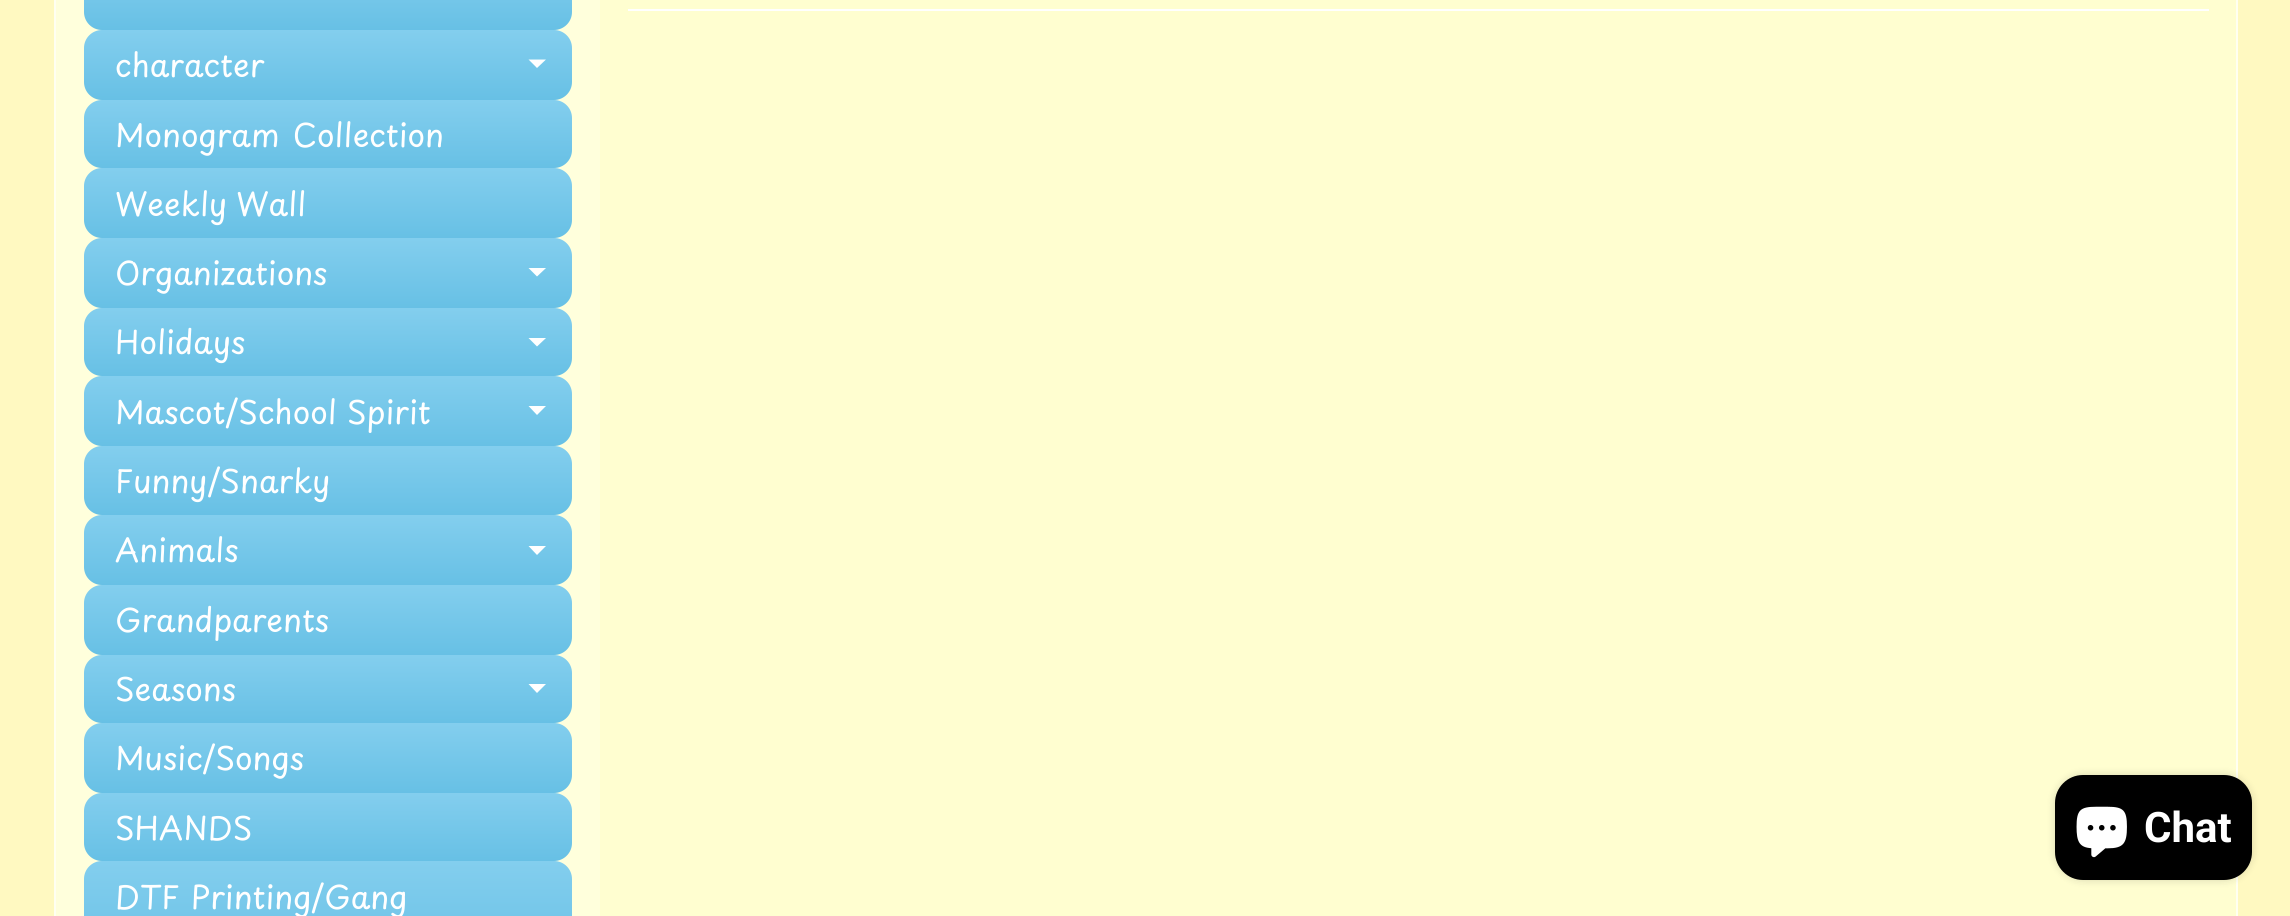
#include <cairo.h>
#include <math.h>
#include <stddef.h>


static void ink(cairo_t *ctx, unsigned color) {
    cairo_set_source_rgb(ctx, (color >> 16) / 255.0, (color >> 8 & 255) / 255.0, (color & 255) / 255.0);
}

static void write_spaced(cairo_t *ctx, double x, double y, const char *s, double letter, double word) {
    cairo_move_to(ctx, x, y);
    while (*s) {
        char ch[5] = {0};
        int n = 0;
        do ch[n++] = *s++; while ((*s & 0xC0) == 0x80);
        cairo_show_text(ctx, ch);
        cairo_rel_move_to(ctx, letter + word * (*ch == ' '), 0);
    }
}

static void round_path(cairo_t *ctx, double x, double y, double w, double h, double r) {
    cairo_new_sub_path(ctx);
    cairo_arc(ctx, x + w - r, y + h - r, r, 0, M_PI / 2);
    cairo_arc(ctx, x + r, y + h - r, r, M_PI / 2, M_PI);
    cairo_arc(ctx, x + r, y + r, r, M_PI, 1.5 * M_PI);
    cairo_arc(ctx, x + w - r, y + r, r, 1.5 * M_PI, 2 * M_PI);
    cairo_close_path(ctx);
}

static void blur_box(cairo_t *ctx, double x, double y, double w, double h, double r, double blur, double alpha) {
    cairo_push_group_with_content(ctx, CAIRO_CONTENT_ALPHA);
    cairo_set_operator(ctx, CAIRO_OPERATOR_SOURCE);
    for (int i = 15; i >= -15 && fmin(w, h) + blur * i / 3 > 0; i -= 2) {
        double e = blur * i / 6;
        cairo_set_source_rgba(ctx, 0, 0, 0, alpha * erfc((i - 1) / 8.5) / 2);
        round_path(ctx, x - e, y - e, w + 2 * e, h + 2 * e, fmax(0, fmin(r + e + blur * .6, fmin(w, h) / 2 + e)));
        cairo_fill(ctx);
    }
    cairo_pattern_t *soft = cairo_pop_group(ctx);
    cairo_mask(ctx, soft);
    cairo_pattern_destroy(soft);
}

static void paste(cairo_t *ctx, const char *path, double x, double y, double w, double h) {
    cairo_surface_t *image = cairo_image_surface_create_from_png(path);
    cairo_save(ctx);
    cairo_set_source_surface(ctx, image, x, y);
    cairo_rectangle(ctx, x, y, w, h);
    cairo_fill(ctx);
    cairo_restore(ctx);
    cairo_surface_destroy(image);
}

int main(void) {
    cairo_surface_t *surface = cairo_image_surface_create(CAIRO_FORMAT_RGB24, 2290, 916);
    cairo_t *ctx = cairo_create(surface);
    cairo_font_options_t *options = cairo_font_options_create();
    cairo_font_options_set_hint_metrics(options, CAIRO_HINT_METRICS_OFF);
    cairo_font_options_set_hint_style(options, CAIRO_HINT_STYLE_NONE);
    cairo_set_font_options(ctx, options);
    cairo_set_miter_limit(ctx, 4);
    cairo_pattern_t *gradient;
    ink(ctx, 0xFFF9C1);
    cairo_paint(ctx);
    ink(ctx, 0xFFFED0);
    cairo_rectangle(ctx, 600, 0, 1636, 916);
    cairo_fill(ctx);
    cairo_rectangle(ctx, 55, -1, 2182, 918);
    ink(ctx, 0xFFFFF1);
    cairo_stroke(ctx);
    ink(ctx, 0xFFFFFF);
    cairo_rectangle(ctx, 628, 9, 1581, 2);
    cairo_fill(ctx);
    ink(ctx, 0xFFFFDC);
    cairo_rectangle(ctx, 56, 0, 544, 916);
    cairo_fill(ctx);
    gradient = cairo_pattern_create_linear(328, -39, 328, 30);
    cairo_pattern_add_color_stop_rgba(gradient, 0, 0.514, 0.808, 0.933, 1);
    cairo_pattern_add_color_stop_rgba(gradient, 1, 0.404, 0.753, 0.898, 1);
    cairo_set_source(ctx, gradient);
    cairo_pattern_destroy(gradient);
    round_path(ctx, 84, -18, 488, 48, 18);
    cairo_fill(ctx);
    gradient = cairo_pattern_create_linear(328, 30, 328, 100);
    cairo_pattern_add_color_stop_rgba(gradient, 0, 0.514, 0.808, 0.933, 1);
    cairo_pattern_add_color_stop_rgba(gradient, 1, 0.404, 0.753, 0.898, 1);
    cairo_set_source(ctx, gradient);
    cairo_pattern_destroy(gradient);
    round_path(ctx, 84, 30, 488, 70, 18);
    cairo_fill(ctx);
    cairo_select_font_face(ctx, "Playpen Sans", CAIRO_FONT_SLANT_NORMAL, CAIRO_FONT_WEIGHT_NORMAL);
    cairo_set_font_size(ctx, 31.5);
    ink(ctx, 0xFFFFFF);
    cairo_move_to(ctx, 115, 77);
    cairo_show_text(ctx, "character");
    cairo_new_path(ctx);
    cairo_move_to(ctx, 528.5, 59.5);
    cairo_line_to(ctx, 546, 59.5);
    cairo_line_to(ctx, 537, 68);
    cairo_close_path(ctx);
    cairo_fill(ctx);
    gradient = cairo_pattern_create_linear(328, 100, 328, 168);
    cairo_pattern_add_color_stop_rgba(gradient, 0, 0.514, 0.808, 0.933, 1);
    cairo_pattern_add_color_stop_rgba(gradient, 1, 0.404, 0.753, 0.898, 1);
    cairo_set_source(ctx, gradient);
    cairo_pattern_destroy(gradient);
    round_path(ctx, 84, 100, 488, 68, 18);
    cairo_fill(ctx);
    ink(ctx, 0xFFFFFF);
    write_spaced(ctx, 115, 147, "Monogram Collection", 0, 3);
    gradient = cairo_pattern_create_linear(328, 168, 328, 238);
    cairo_pattern_add_color_stop_rgba(gradient, 0, 0.514, 0.808, 0.933, 1);
    cairo_pattern_add_color_stop_rgba(gradient, 1, 0.404, 0.753, 0.898, 1);
    cairo_set_source(ctx, gradient);
    cairo_pattern_destroy(gradient);
    round_path(ctx, 84, 168, 488, 70, 18);
    cairo_fill(ctx);
    ink(ctx, 0xFFFFFF);
    write_spaced(ctx, 115, 216, "Weekly Wall", 0, -1);
    gradient = cairo_pattern_create_linear(328, 238, 328, 308);
    cairo_pattern_add_color_stop_rgba(gradient, 0, 0.514, 0.808, 0.933, 1);
    cairo_pattern_add_color_stop_rgba(gradient, 1, 0.404, 0.753, 0.898, 1);
    cairo_set_source(ctx, gradient);
    cairo_pattern_destroy(gradient);
    round_path(ctx, 84, 238, 488, 70, 18);
    cairo_fill(ctx);
    ink(ctx, 0xFFFFFF);
    cairo_move_to(ctx, 115, 285);
    cairo_show_text(ctx, "Organizations");
    cairo_new_path(ctx);
    cairo_move_to(ctx, 528.5, 268);
    cairo_line_to(ctx, 546, 268);
    cairo_line_to(ctx, 537, 276.5);
    cairo_close_path(ctx);
    cairo_fill(ctx);
    gradient = cairo_pattern_create_linear(328, 308, 328, 376);
    cairo_pattern_add_color_stop_rgba(gradient, 0, 0.514, 0.808, 0.933, 1);
    cairo_pattern_add_color_stop_rgba(gradient, 1, 0.404, 0.753, 0.898, 1);
    cairo_set_source(ctx, gradient);
    cairo_pattern_destroy(gradient);
    round_path(ctx, 84, 308, 488, 68, 18);
    cairo_fill(ctx);
    ink(ctx, 0xFFFFFF);
    cairo_move_to(ctx, 115, 354);
    cairo_show_text(ctx, "Holidays");
    cairo_new_path(ctx);
    cairo_move_to(ctx, 528.5, 338);
    cairo_line_to(ctx, 546, 338);
    cairo_line_to(ctx, 537, 346.5);
    cairo_close_path(ctx);
    cairo_fill(ctx);
    gradient = cairo_pattern_create_linear(328, 376, 328, 446);
    cairo_pattern_add_color_stop_rgba(gradient, 0, 0.514, 0.808, 0.933, 1);
    cairo_pattern_add_color_stop_rgba(gradient, 1, 0.404, 0.753, 0.898, 1);
    cairo_set_source(ctx, gradient);
    cairo_pattern_destroy(gradient);
    round_path(ctx, 84, 376, 488, 70, 18);
    cairo_fill(ctx);
    ink(ctx, 0xFFFFFF);
    cairo_move_to(ctx, 115, 424);
    cairo_show_text(ctx, "Mascot/School Spirit");
    cairo_new_path(ctx);
    cairo_move_to(ctx, 528.5, 406);
    cairo_line_to(ctx, 546, 406);
    cairo_line_to(ctx, 537, 415);
    cairo_close_path(ctx);
    cairo_fill(ctx);
    gradient = cairo_pattern_create_linear(328, 446, 328, 515);
    cairo_pattern_add_color_stop_rgba(gradient, 0, 0.514, 0.808, 0.933, 1);
    cairo_pattern_add_color_stop_rgba(gradient, 1, 0.404, 0.753, 0.898, 1);
    cairo_set_source(ctx, gradient);
    cairo_pattern_destroy(gradient);
    round_path(ctx, 84, 446, 488, 69, 18);
    cairo_fill(ctx);
    ink(ctx, 0xFFFFFF);
    cairo_move_to(ctx, 115, 493);
    cairo_show_text(ctx, "Funny/Snarky");
    gradient = cairo_pattern_create_linear(328, 515, 328, 585);
    cairo_pattern_add_color_stop_rgba(gradient, 0, 0.514, 0.808, 0.933, 1);
    cairo_pattern_add_color_stop_rgba(gradient, 1, 0.404, 0.753, 0.898, 1);
    cairo_set_source(ctx, gradient);
    cairo_pattern_destroy(gradient);
    round_path(ctx, 84, 515, 488, 70, 18);
    cairo_fill(ctx);
    ink(ctx, 0xFFFFFF);
    cairo_move_to(ctx, 115, 562);
    cairo_show_text(ctx, "Animals");
    cairo_new_path(ctx);
    cairo_move_to(ctx, 528.5, 546);
    cairo_line_to(ctx, 546, 546);
    cairo_line_to(ctx, 537, 555);
    cairo_close_path(ctx);
    cairo_fill(ctx);
    gradient = cairo_pattern_create_linear(328, 585, 328, 655);
    cairo_pattern_add_color_stop_rgba(gradient, 0, 0.514, 0.808, 0.933, 1);
    cairo_pattern_add_color_stop_rgba(gradient, 1, 0.404, 0.753, 0.898, 1);
    cairo_set_source(ctx, gradient);
    cairo_pattern_destroy(gradient);
    round_path(ctx, 84, 585, 488, 70, 18);
    cairo_fill(ctx);
    ink(ctx, 0xFFFFFF);
    cairo_move_to(ctx, 115, 632);
    cairo_show_text(ctx, "Grandparents");
    gradient = cairo_pattern_create_linear(328, 655, 328, 723);
    cairo_pattern_add_color_stop_rgba(gradient, 0, 0.514, 0.808, 0.933, 1);
    cairo_pattern_add_color_stop_rgba(gradient, 1, 0.404, 0.753, 0.898, 1);
    cairo_set_source(ctx, gradient);
    cairo_pattern_destroy(gradient);
    round_path(ctx, 84, 655, 488, 68, 18);
    cairo_fill(ctx);
    ink(ctx, 0xFFFFFF);
    cairo_move_to(ctx, 115, 701);
    cairo_show_text(ctx, "Seasons");
    cairo_new_path(ctx);
    cairo_move_to(ctx, 528.5, 684);
    cairo_line_to(ctx, 546, 684);
    cairo_line_to(ctx, 537, 693);
    cairo_close_path(ctx);
    cairo_fill(ctx);
    gradient = cairo_pattern_create_linear(328, 723, 328, 793);
    cairo_pattern_add_color_stop_rgba(gradient, 0, 0.514, 0.808, 0.933, 1);
    cairo_pattern_add_color_stop_rgba(gradient, 1, 0.404, 0.753, 0.898, 1);
    cairo_set_source(ctx, gradient);
    cairo_pattern_destroy(gradient);
    round_path(ctx, 84, 723, 488, 70, 18);
    cairo_fill(ctx);
    ink(ctx, 0xFFFFFF);
    cairo_move_to(ctx, 115, 770);
    cairo_show_text(ctx, "Music/Songs");
    gradient = cairo_pattern_create_linear(328, 793, 328, 861);
    cairo_pattern_add_color_stop_rgba(gradient, 0, 0.514, 0.808, 0.933, 1);
    cairo_pattern_add_color_stop_rgba(gradient, 1, 0.404, 0.753, 0.898, 1);
    cairo_set_source(ctx, gradient);
    cairo_pattern_destroy(gradient);
    round_path(ctx, 84, 793, 488, 68, 18);
    cairo_fill(ctx);
    ink(ctx, 0xFFFFFF);
    cairo_move_to(ctx, 115, 840);
    cairo_show_text(ctx, "SHANDS");
    gradient = cairo_pattern_create_linear(328, 861, 328, 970);
    cairo_pattern_add_color_stop_rgba(gradient, 0, 0.514, 0.808, 0.933, 1);
    cairo_pattern_add_color_stop_rgba(gradient, 1, 0.404, 0.753, 0.898, 1);
    cairo_set_source(ctx, gradient);
    cairo_pattern_destroy(gradient);
    round_path(ctx, 84, 861, 488, 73, 18);
    cairo_fill(ctx);
    ink(ctx, 0xFFFFFF);
    write_spaced(ctx, 115, 909, "DTF Printing/Gang", 0, 1);
    ink(ctx, 0x000000);
    blur_box(ctx, 2055, 775, 197, 105, 28, 4.5, 0.15);
    ink(ctx, 0x000000);
    round_path(ctx, 2055, 775, 197, 105, 28);
    cairo_fill(ctx);
    paste(ctx, "media/1.png", 2076, 806, 51, 52);
    cairo_select_font_face(ctx, "Roboto", CAIRO_FONT_SLANT_NORMAL, CAIRO_FONT_WEIGHT_BOLD);
    cairo_set_font_size(ctx, 42);
    ink(ctx, 0xFFFFFF);
    cairo_move_to(ctx, 2144, 842);
    cairo_show_text(ctx, "Chat");
    cairo_surface_write_to_png(surface, "image.png");
    cairo_font_options_destroy(options);
    cairo_destroy(ctx);
    cairo_surface_destroy(surface);
    return 0;
}
